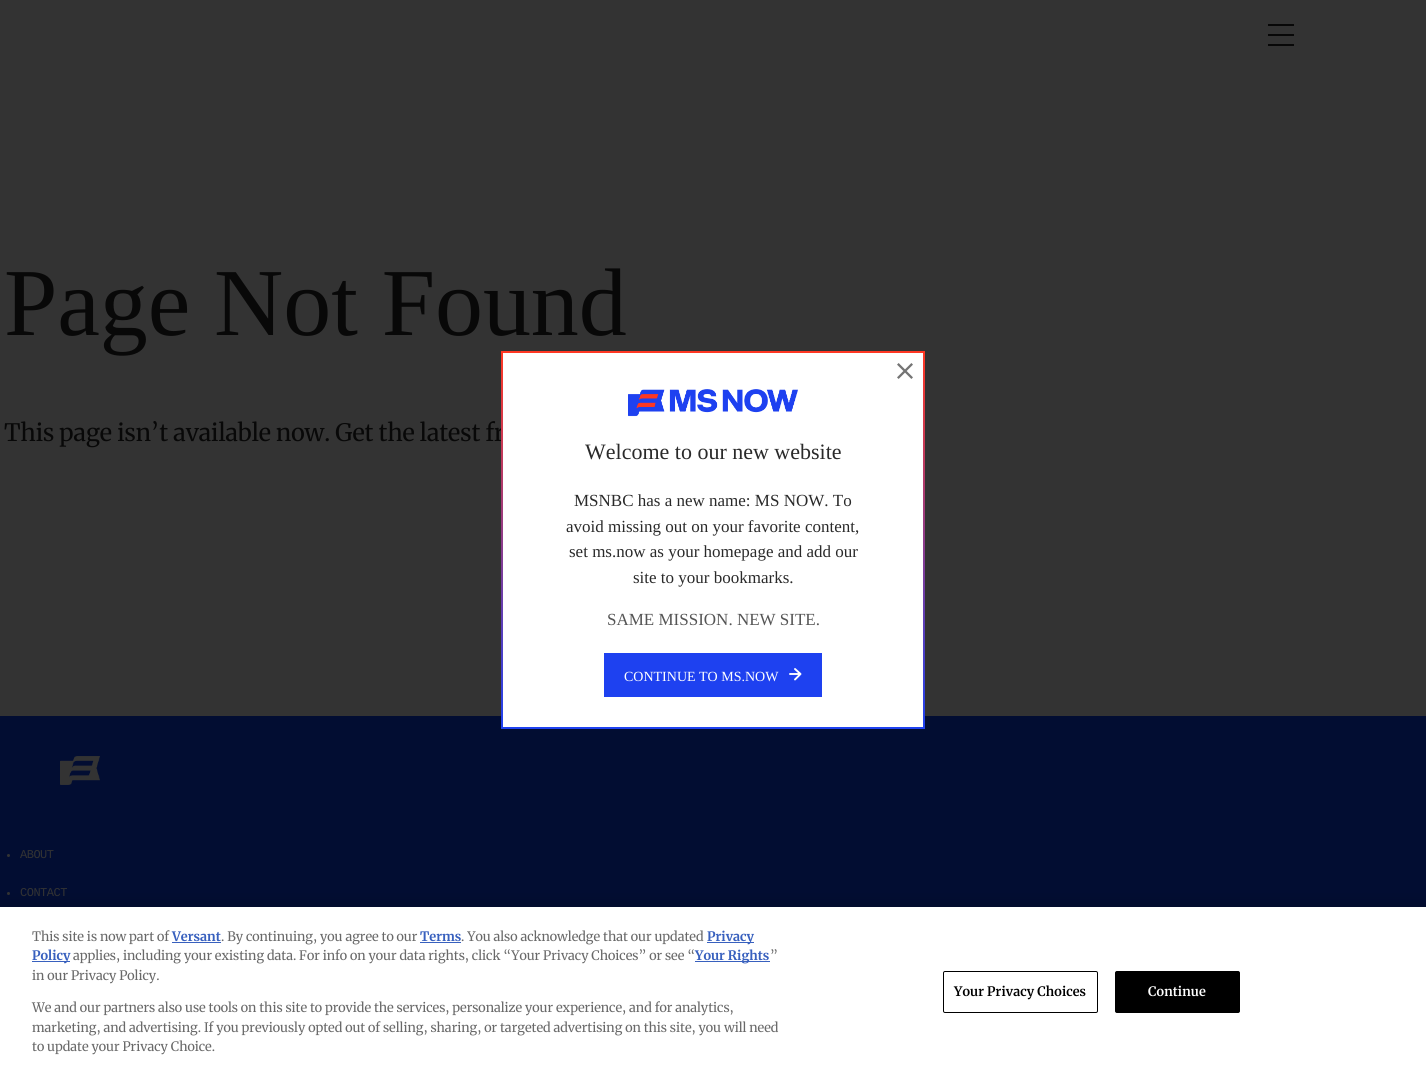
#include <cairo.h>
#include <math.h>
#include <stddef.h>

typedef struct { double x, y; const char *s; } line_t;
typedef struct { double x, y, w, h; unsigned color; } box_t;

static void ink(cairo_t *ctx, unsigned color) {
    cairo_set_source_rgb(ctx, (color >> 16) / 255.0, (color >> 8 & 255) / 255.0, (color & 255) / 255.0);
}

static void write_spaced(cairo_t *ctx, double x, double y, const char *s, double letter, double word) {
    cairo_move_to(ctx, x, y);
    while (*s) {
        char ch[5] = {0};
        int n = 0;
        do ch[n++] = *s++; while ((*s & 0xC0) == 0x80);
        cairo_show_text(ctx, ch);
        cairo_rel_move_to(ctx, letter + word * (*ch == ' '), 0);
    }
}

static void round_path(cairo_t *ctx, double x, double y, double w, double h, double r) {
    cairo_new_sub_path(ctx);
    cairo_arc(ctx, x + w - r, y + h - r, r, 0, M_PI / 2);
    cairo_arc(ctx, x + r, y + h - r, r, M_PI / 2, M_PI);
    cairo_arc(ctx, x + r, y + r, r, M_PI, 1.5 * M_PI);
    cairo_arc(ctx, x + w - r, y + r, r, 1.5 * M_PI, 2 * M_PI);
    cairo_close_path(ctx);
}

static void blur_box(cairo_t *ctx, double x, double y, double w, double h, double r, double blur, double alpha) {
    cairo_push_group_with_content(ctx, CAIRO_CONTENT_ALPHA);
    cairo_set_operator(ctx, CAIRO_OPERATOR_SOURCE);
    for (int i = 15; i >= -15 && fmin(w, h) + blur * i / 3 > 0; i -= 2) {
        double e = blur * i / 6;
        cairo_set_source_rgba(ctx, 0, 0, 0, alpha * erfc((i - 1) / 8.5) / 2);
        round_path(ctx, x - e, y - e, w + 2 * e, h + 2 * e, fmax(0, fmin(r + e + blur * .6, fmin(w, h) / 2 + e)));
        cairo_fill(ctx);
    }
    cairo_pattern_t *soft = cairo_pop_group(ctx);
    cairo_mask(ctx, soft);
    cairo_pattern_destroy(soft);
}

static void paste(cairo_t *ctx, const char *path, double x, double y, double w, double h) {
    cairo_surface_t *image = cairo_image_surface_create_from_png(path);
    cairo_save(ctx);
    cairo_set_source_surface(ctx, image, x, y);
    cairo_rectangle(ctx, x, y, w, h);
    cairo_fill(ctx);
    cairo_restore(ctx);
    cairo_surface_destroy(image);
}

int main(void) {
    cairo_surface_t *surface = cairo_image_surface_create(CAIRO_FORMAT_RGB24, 1426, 1080);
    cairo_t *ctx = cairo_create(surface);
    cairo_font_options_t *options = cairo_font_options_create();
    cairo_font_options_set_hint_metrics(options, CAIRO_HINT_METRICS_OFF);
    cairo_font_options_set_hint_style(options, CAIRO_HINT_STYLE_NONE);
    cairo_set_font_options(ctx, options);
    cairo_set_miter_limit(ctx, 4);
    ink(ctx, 0x333333);
    cairo_paint(ctx);
    {
        static const box_t items[] = {
            {1268, 24, 26, 2, 0x080808},
            {1268, 34, 26, 2, 0x080808},
            {1268, 44, 26, 2, 0x080808},
        };
        for (size_t i = 0; i < sizeof items / sizeof *items; i++) {
            ink(ctx, items[i].color);
            cairo_rectangle(ctx, items[i].x, items[i].y, items[i].w, items[i].h);
            cairo_fill(ctx);
        }
    }
    cairo_select_font_face(ctx, "Liberation Serif", CAIRO_FONT_SLANT_NORMAL, CAIRO_FONT_WEIGHT_NORMAL);
    cairo_set_font_size(ctx, 96);
    write_spaced(ctx, 4, 335, "Page Not Found", -0.1, 0);
    cairo_select_font_face(ctx, "Merriweather", CAIRO_FONT_SLANT_NORMAL, CAIRO_FONT_WEIGHT_NORMAL);
    cairo_set_font_size(ctx, 24);
    cairo_move_to(ctx, 4, 441);
    cairo_show_text(ctx, "This page isn’t available now. Get the latest fr");
    ink(ctx, 0x020D32);
    cairo_rectangle(ctx, 0, 716, 1426, 191);
    cairo_fill(ctx);
    paste(ctx, "media/1.png", 60, 756, 40, 29);
    ink(ctx, 0x333333);
    cairo_arc(ctx, 8.5, 855.5, 1.5, 0, 2 * M_PI);
    cairo_fill(ctx);
    cairo_select_font_face(ctx, "Liberation Mono", CAIRO_FONT_SLANT_NORMAL, CAIRO_FONT_WEIGHT_NORMAL);
    cairo_set_font_size(ctx, 12);
    write_spaced(ctx, 20, 858, "ABOUT", -0.5, 0);
    cairo_new_path(ctx);
    cairo_arc(ctx, 8.5, 893.5, 1.5, 0, 2 * M_PI);
    cairo_fill(ctx);
    write_spaced(ctx, 20, 896, "CONTACT", -0.5, 0);
    ink(ctx, 0xFFFFFF);
    cairo_rectangle(ctx, 503, 353, 420, 374);
    cairo_fill(ctx);
    paste(ctx, "media/2.png", 501, 351, 424, 378);
    paste(ctx, "media/3.png", 897, 363, 16, 16);
    paste(ctx, "media/4.png", 628, 389, 170, 28);
    cairo_select_font_face(ctx, "Liberation Serif", CAIRO_FONT_SLANT_NORMAL, CAIRO_FONT_WEIGHT_NORMAL);
    cairo_set_font_size(ctx, 22);
    ink(ctx, 0x2A2A2A);
    cairo_move_to(ctx, 585, 459);
    cairo_show_text(ctx, "Welcome to our new website");
    cairo_set_font_size(ctx, 17);
    {
        static const line_t items[] = {
            {574, 506, "MSNBC has a new name: MS NOW. To"},
            {566, 532, "avoid missing out on your favorite content,"},
            {569, 557, "set ms.now as your homepage and add our"},
            {633, 583, "site to your bookmarks."},
        };
        for (size_t i = 0; i < sizeof items / sizeof *items; i++) {
            cairo_move_to(ctx, items[i].x, items[i].y);
            cairo_show_text(ctx, items[i].s);
        }
    }
    ink(ctx, 0x555555);
    cairo_move_to(ctx, 607, 625);
    cairo_show_text(ctx, "SAME MISSION. NEW SITE.");
    ink(ctx, 0x1E41F0);
    cairo_rectangle(ctx, 604, 653, 218, 44);
    cairo_fill(ctx);
    cairo_set_font_size(ctx, 14);
    ink(ctx, 0xFFFFFF);
    cairo_move_to(ctx, 624, 681);
    cairo_show_text(ctx, "CONTINUE TO MS.NOW");
    cairo_new_path(ctx);
    cairo_move_to(ctx, 790, 674);
    cairo_line_to(ctx, 800.5, 674);
    cairo_move_to(ctx, 800.5, 674);
    cairo_line_to(ctx, 795, 669);
    cairo_move_to(ctx, 800.5, 674);
    cairo_line_to(ctx, 795, 679.5);
    cairo_set_line_width(ctx, 1.9);
    cairo_set_line_cap(ctx, CAIRO_LINE_CAP_ROUND);
    cairo_set_line_join(ctx, CAIRO_LINE_JOIN_ROUND);
    cairo_stroke(ctx);
    ink(ctx, 0x000000);
    blur_box(ctx, 0, 907, 1426, 173, 0, 9, 0.2);
    ink(ctx, 0xFFFFFF);
    cairo_rectangle(ctx, 0, 907, 1426, 173);
    cairo_fill(ctx);
    cairo_select_font_face(ctx, "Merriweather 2", CAIRO_FONT_SLANT_NORMAL, CAIRO_FONT_WEIGHT_NORMAL);
    cairo_set_font_size(ctx, 13);
    ink(ctx, 0x696969);
    cairo_move_to(ctx, 32, 941);
    cairo_show_text(ctx, "This site is now part of");
    cairo_select_font_face(ctx, "Merriweather", CAIRO_FONT_SLANT_NORMAL, CAIRO_FONT_WEIGHT_BOLD);
    ink(ctx, 0x3860BE);
    cairo_move_to(ctx, 172, 941);
    cairo_show_text(ctx, "Versant");
    cairo_rectangle(ctx, 172, 942, 49, 1);
    cairo_fill(ctx);
    cairo_select_font_face(ctx, "Merriweather 2", CAIRO_FONT_SLANT_NORMAL, CAIRO_FONT_WEIGHT_NORMAL);
    ink(ctx, 0x696969);
    cairo_move_to(ctx, 221, 941);
    cairo_show_text(ctx, ". By continuing, you agree to our");
    cairo_select_font_face(ctx, "Merriweather", CAIRO_FONT_SLANT_NORMAL, CAIRO_FONT_WEIGHT_BOLD);
    ink(ctx, 0x3860BE);
    cairo_move_to(ctx, 420, 941);
    cairo_show_text(ctx, "Terms");
    cairo_rectangle(ctx, 420, 942, 41, 1);
    cairo_fill(ctx);
    cairo_select_font_face(ctx, "Merriweather 2", CAIRO_FONT_SLANT_NORMAL, CAIRO_FONT_WEIGHT_NORMAL);
    ink(ctx, 0x696969);
    cairo_move_to(ctx, 461, 941);
    cairo_show_text(ctx, ". You also acknowledge that our updated");
    ink(ctx, 0x3860BE);
    cairo_rectangle(ctx, 707, 942, 47, 1);
    cairo_fill(ctx);
    cairo_select_font_face(ctx, "Merriweather", CAIRO_FONT_SLANT_NORMAL, CAIRO_FONT_WEIGHT_BOLD);
    cairo_move_to(ctx, 707, 941);
    cairo_show_text(ctx, "Privacy");
    cairo_rectangle(ctx, 32, 961, 38, 1);
    cairo_fill(ctx);
    cairo_move_to(ctx, 32, 960);
    cairo_show_text(ctx, "Policy");
    cairo_select_font_face(ctx, "Merriweather 2", CAIRO_FONT_SLANT_NORMAL, CAIRO_FONT_WEIGHT_NORMAL);
    ink(ctx, 0x696969);
    cairo_move_to(ctx, 73, 960);
    cairo_show_text(ctx, "applies, including your existing data. For info on your data rights, click “Your Privacy Choices” or see “");
    ink(ctx, 0x3860BE);
    cairo_rectangle(ctx, 695, 961, 75, 1);
    cairo_fill(ctx);
    cairo_select_font_face(ctx, "Merriweather", CAIRO_FONT_SLANT_NORMAL, CAIRO_FONT_WEIGHT_BOLD);
    cairo_move_to(ctx, 695, 960);
    cairo_show_text(ctx, "Your Rights");
    cairo_select_font_face(ctx, "Merriweather 2", CAIRO_FONT_SLANT_NORMAL, CAIRO_FONT_WEIGHT_NORMAL);
    ink(ctx, 0x696969);
    {
        static const line_t items[] = {
            {770, 960, "”"},
            {32, 980, "in our Privacy Policy."},
            {32, 1012, "We and our partners also use tools on this site to provide the services, personalize your experience, and for analytics,"},
            {32, 1032, "marketing, and advertising. If you previously opted out of selling, sharing, or targeted advertising on this site, you will need"},
            {32, 1051, "to update your Privacy Choice."},
        };
        for (size_t i = 0; i < sizeof items / sizeof *items; i++) {
            cairo_move_to(ctx, items[i].x, items[i].y);
            cairo_show_text(ctx, items[i].s);
        }
    }
    round_path(ctx, 943.5, 971.5, 154, 41, 1.5);
    ink(ctx, 0x000000);
    cairo_set_line_width(ctx, 1);
    cairo_set_line_cap(ctx, CAIRO_LINE_CAP_BUTT);
    cairo_set_line_join(ctx, CAIRO_LINE_JOIN_MITER);
    cairo_stroke(ctx);
    cairo_select_font_face(ctx, "Merriweather SemiBold", CAIRO_FONT_SLANT_NORMAL, CAIRO_FONT_WEIGHT_NORMAL);
    write_spaced(ctx, 954, 996, "Your Privacy Choices", 0.1, 0);
    round_path(ctx, 1115.5, 971.5, 124, 41, 1.5);
    cairo_fill_preserve(ctx);
    cairo_stroke(ctx);
    ink(ctx, 0xFFFFFF);
    write_spaced(ctx, 1148, 996, "Continue", 0.1, 0);
    cairo_surface_write_to_png(surface, "image.png");
    cairo_font_options_destroy(options);
    cairo_destroy(ctx);
    cairo_surface_destroy(surface);
    return 0;
}
